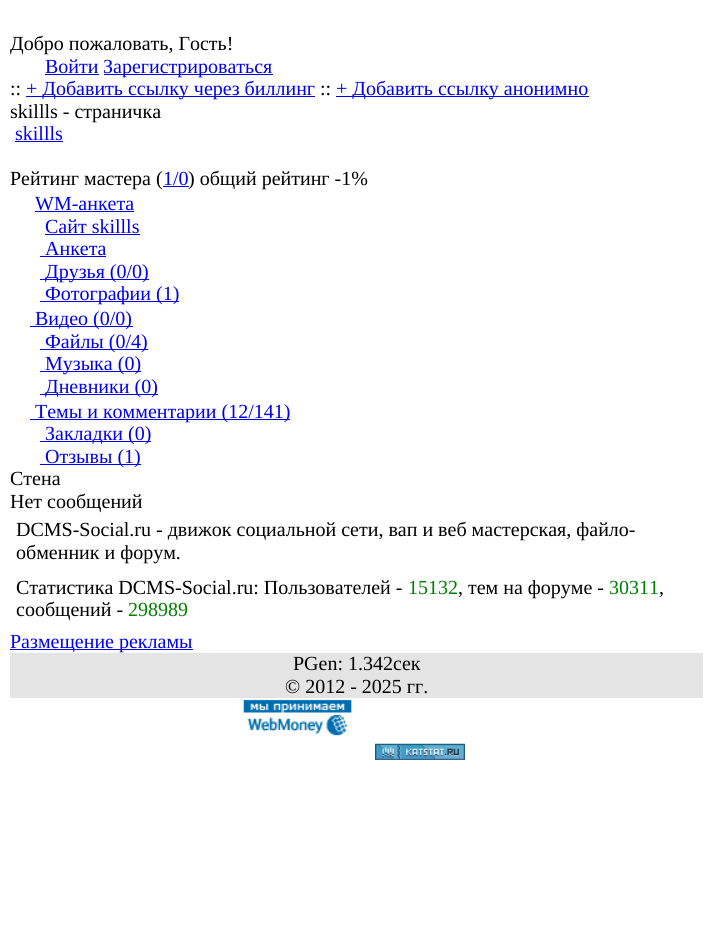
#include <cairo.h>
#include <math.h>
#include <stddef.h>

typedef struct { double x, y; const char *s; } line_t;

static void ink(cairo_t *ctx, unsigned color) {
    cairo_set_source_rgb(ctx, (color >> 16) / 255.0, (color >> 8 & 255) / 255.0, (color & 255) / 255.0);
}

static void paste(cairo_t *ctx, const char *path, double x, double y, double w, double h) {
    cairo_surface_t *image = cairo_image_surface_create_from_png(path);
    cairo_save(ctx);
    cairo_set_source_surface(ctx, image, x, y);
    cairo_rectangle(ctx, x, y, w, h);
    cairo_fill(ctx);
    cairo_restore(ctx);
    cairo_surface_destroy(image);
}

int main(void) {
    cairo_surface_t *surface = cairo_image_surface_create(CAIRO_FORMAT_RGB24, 712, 949);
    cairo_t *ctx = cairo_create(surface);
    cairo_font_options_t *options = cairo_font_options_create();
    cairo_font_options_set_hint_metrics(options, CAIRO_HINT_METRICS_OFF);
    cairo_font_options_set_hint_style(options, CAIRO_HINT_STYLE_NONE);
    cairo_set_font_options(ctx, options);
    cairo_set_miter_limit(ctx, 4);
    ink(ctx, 0xFFFFFF);
    cairo_paint(ctx);
    cairo_select_font_face(ctx, "Liberation Serif", CAIRO_FONT_SLANT_NORMAL, CAIRO_FONT_WEIGHT_NORMAL);
    cairo_set_font_size(ctx, 20);
    ink(ctx, 0x000000);
    cairo_move_to(ctx, 10, 50);
    cairo_show_text(ctx, "Добро пожаловать, Гость!");
    ink(ctx, 0x0000EE);
    cairo_move_to(ctx, 45, 73);
    cairo_show_text(ctx, "Войти");
    cairo_rectangle(ctx, 45, 74, 54, 1);
    cairo_fill(ctx);
    cairo_rectangle(ctx, 104, 74, 169, 1);
    cairo_fill(ctx);
    cairo_move_to(ctx, 103, 73);
    cairo_show_text(ctx, "Зарегистрироваться");
    ink(ctx, 0x000000);
    cairo_move_to(ctx, 10, 95);
    cairo_show_text(ctx, "::");
    ink(ctx, 0x0000EE);
    cairo_rectangle(ctx, 26, 96, 289, 1);
    cairo_fill(ctx);
    cairo_move_to(ctx, 26, 95);
    cairo_show_text(ctx, "+ Добавить ссылку через биллинг");
    ink(ctx, 0x000000);
    cairo_move_to(ctx, 320, 95);
    cairo_show_text(ctx, "::");
    ink(ctx, 0x0000EE);
    cairo_rectangle(ctx, 336, 96, 253, 1);
    cairo_fill(ctx);
    cairo_move_to(ctx, 336, 95);
    cairo_show_text(ctx, "+ Добавить ссылку анонимно");
    ink(ctx, 0x000000);
    cairo_move_to(ctx, 10, 118);
    cairo_show_text(ctx, "skillls - страничка");
    ink(ctx, 0x0000EE);
    cairo_move_to(ctx, 15, 140);
    cairo_show_text(ctx, "skillls");
    cairo_rectangle(ctx, 15, 141, 48, 1);
    cairo_fill(ctx);
    ink(ctx, 0x000000);
    cairo_move_to(ctx, 10, 185);
    cairo_show_text(ctx, "Рейтинг мастера (");
    ink(ctx, 0x0000EE);
    cairo_move_to(ctx, 163, 185);
    cairo_show_text(ctx, "1/0");
    cairo_rectangle(ctx, 163, 186, 26, 1);
    cairo_fill(ctx);
    ink(ctx, 0x000000);
    cairo_move_to(ctx, 188, 185);
    cairo_show_text(ctx, ") общий рейтинг -1%");
    ink(ctx, 0x0000EE);
    cairo_move_to(ctx, 35, 210);
    cairo_show_text(ctx, "WM-анкета");
    cairo_rectangle(ctx, 35, 211, 99, 1);
    cairo_fill(ctx);
    cairo_move_to(ctx, 45, 233);
    cairo_show_text(ctx, "Cайт skillls");
    cairo_rectangle(ctx, 45, 234, 95, 1);
    cairo_fill(ctx);
    cairo_move_to(ctx, 45, 255);
    cairo_show_text(ctx, "Анкета");
    cairo_rectangle(ctx, 40, 256, 66, 1);
    cairo_fill(ctx);
    cairo_rectangle(ctx, 40, 279, 109, 1);
    cairo_fill(ctx);
    cairo_move_to(ctx, 45, 278);
    cairo_show_text(ctx, "Друзья (0/0)");
    cairo_rectangle(ctx, 40, 301, 139, 1);
    cairo_fill(ctx);
    cairo_move_to(ctx, 45, 300);
    cairo_show_text(ctx, "Фотографии (1)");
    cairo_rectangle(ctx, 30, 326, 103, 1);
    cairo_fill(ctx);
    cairo_move_to(ctx, 35, 325);
    cairo_show_text(ctx, "Видео (0/0)");
    cairo_rectangle(ctx, 40, 349, 108, 1);
    cairo_fill(ctx);
    cairo_move_to(ctx, 45, 348);
    cairo_show_text(ctx, "Файлы (0/4)");
    cairo_rectangle(ctx, 40, 371, 101, 1);
    cairo_fill(ctx);
    cairo_move_to(ctx, 45, 370);
    cairo_show_text(ctx, "Музыка (0)");
    cairo_rectangle(ctx, 40, 394, 118, 1);
    cairo_fill(ctx);
    cairo_move_to(ctx, 45, 393);
    cairo_show_text(ctx, "Дневники (0)");
    cairo_rectangle(ctx, 30, 419, 260, 1);
    cairo_fill(ctx);
    cairo_move_to(ctx, 35, 418);
    cairo_show_text(ctx, "Темы и комментарии (12/141)");
    cairo_rectangle(ctx, 40, 441, 111, 1);
    cairo_fill(ctx);
    cairo_move_to(ctx, 45, 440);
    cairo_show_text(ctx, "Закладки (0)");
    cairo_rectangle(ctx, 40, 464, 101, 1);
    cairo_fill(ctx);
    cairo_move_to(ctx, 45, 463);
    cairo_show_text(ctx, "Отзывы (1)");
    ink(ctx, 0x000000);
    {
        static const line_t items[] = {
            {10, 485, "Стена"},
            {10, 508, "Нет сообщений"},
            {16, 536, "DCMS-Social.ru - движок социальной сети, вап и веб мастерская, файло-"},
            {16, 559, "обменник и форум."},
            {16, 594, "Статистика DCMS-Social.ru: Пользователей -"},
        };
        for (size_t i = 0; i < sizeof items / sizeof *items; i++) {
            cairo_move_to(ctx, items[i].x, items[i].y);
            cairo_show_text(ctx, items[i].s);
        }
    }
    ink(ctx, 0x008000);
    cairo_move_to(ctx, 408, 594);
    cairo_show_text(ctx, "15132");
    ink(ctx, 0x000000);
    cairo_move_to(ctx, 458, 594);
    cairo_show_text(ctx, ", тем на форуме -");
    ink(ctx, 0x008000);
    cairo_move_to(ctx, 609, 594);
    cairo_show_text(ctx, "30311");
    ink(ctx, 0x000000);
    cairo_move_to(ctx, 659, 594);
    cairo_show_text(ctx, ",");
    cairo_move_to(ctx, 16, 616);
    cairo_show_text(ctx, "сообщений -");
    ink(ctx, 0x008000);
    cairo_move_to(ctx, 128, 616);
    cairo_show_text(ctx, "298989");
    ink(ctx, 0x0000EE);
    cairo_rectangle(ctx, 10, 649, 183, 1);
    cairo_fill(ctx);
    cairo_move_to(ctx, 10, 648);
    cairo_show_text(ctx, "Размещение рекламы");
    ink(ctx, 0xE4E4E4);
    cairo_rectangle(ctx, 10, 653, 693, 45);
    cairo_fill(ctx);
    ink(ctx, 0x000000);
    cairo_move_to(ctx, 293, 670);
    cairo_show_text(ctx, "PGen: 1.342сек");
    cairo_move_to(ctx, 285, 693);
    cairo_show_text(ctx, "© 2012 - 2025 гг.");
    paste(ctx, "media/1.png", 243, 699, 109, 37);
    paste(ctx, "media/2.png", 375, 743, 90, 17);
    cairo_surface_write_to_png(surface, "image.png");
    cairo_font_options_destroy(options);
    cairo_destroy(ctx);
    cairo_surface_destroy(surface);
    return 0;
}
